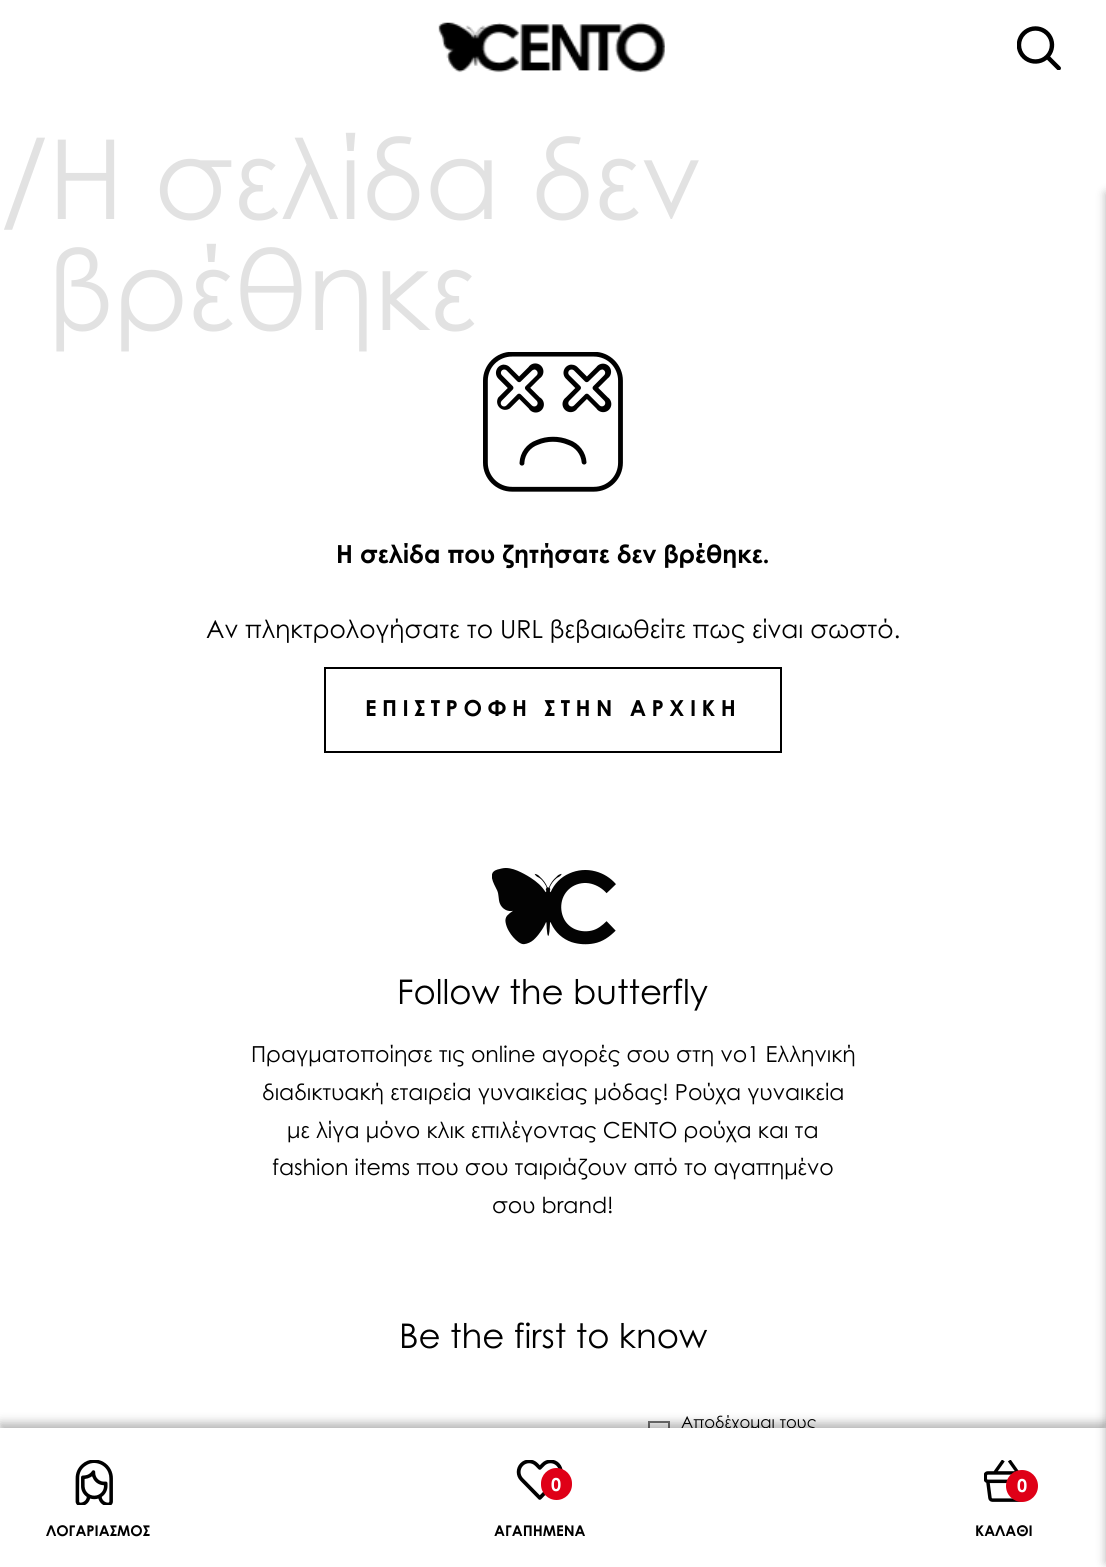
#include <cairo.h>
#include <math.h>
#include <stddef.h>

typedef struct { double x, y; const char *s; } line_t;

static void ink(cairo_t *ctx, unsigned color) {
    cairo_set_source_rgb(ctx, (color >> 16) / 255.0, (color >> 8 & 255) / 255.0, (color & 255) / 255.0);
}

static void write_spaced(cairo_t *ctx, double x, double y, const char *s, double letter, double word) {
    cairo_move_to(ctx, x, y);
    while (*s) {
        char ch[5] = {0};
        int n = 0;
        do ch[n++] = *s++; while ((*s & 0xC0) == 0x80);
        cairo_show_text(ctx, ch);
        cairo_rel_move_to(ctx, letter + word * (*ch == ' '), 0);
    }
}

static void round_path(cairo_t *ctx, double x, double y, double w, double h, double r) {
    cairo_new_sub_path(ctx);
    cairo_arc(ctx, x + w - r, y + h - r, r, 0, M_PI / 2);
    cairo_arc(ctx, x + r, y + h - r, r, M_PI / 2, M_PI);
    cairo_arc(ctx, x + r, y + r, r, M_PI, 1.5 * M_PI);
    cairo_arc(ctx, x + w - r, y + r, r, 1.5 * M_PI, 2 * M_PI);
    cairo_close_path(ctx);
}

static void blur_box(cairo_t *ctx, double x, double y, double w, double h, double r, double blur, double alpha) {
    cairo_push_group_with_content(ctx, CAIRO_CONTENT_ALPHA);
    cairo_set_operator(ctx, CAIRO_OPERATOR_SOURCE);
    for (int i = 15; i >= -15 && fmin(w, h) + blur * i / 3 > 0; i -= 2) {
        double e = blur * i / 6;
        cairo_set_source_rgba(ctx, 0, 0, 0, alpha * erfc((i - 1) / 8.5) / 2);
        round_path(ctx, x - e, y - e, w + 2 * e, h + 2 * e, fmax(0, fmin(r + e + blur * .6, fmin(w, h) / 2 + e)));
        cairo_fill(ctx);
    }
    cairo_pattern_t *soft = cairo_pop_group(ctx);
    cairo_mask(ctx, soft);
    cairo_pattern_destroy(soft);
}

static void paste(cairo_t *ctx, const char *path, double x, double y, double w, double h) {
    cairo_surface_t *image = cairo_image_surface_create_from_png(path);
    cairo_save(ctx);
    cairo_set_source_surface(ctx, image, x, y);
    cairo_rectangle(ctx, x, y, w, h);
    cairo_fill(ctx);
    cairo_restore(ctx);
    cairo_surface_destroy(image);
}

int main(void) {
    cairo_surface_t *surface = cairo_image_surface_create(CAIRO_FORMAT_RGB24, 1106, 1567);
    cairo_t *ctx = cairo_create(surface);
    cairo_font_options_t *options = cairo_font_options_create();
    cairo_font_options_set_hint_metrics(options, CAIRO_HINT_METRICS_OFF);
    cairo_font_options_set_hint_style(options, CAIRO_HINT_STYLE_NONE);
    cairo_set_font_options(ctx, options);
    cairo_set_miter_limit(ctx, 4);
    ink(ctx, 0xFFFFFF);
    cairo_paint(ctx);
    cairo_select_font_face(ctx, "Century Gothic", CAIRO_FONT_SLANT_NORMAL, CAIRO_FONT_WEIGHT_NORMAL);
    cairo_set_font_size(ctx, 110.5);
    ink(ctx, 0xE2E2E2);
    cairo_move_to(ctx, 0, 219);
    cairo_show_text(ctx, "/Η σελίδα δεν");
    cairo_move_to(ctx, 48, 330);
    cairo_show_text(ctx, "βρέθηκε");
    paste(ctx, "media/1.png", 483, 352, 140, 140);
    cairo_select_font_face(ctx, "Century Gothic", CAIRO_FONT_SLANT_NORMAL, CAIRO_FONT_WEIGHT_BOLD);
    cairo_set_font_size(ctx, 24.9);
    ink(ctx, 0x000000);
    cairo_move_to(ctx, 336, 563);
    cairo_show_text(ctx, "Η σελίδα που ζητήσατε δεν βρέθηκε.");
    cairo_select_font_face(ctx, "Century Gothic", CAIRO_FONT_SLANT_NORMAL, CAIRO_FONT_WEIGHT_NORMAL);
    cairo_move_to(ctx, 206, 638);
    cairo_show_text(ctx, "Αν πληκτρολογήσατε το URL βεβαιωθείτε πως είναι σωστό.");
    cairo_rectangle(ctx, 325, 668, 456, 84);
    cairo_stroke(ctx);
    cairo_select_font_face(ctx, "Century Gothic", CAIRO_FONT_SLANT_NORMAL, CAIRO_FONT_WEIGHT_BOLD);
    cairo_set_font_size(ctx, 22.1);
    write_spaced(ctx, 365, 716, "ΕΠΙΣΤΡΟΦΗ ΣΤΗΝ ΑΡΧΙΚΗ", 5.5, 0);
    cairo_rectangle(ctx, 649, 1422, 20, 21);
    ink(ctx, 0x707070);
    cairo_stroke(ctx);
    cairo_select_font_face(ctx, "Century Gothic", CAIRO_FONT_SLANT_NORMAL, CAIRO_FONT_WEIGHT_NORMAL);
    cairo_set_font_size(ctx, 16.5);
    ink(ctx, 0x000000);
    cairo_move_to(ctx, 681, 1428);
    cairo_show_text(ctx, "Αποδέχομαι τους");
    ink(ctx, 0x000000);
    blur_box(ctx, 0, 1423, 1106, 140, 0, 5, 0.29);
    ink(ctx, 0xFFFFFF);
    cairo_rectangle(ctx, 0, 1428, 1106, 139);
    cairo_fill(ctx);
    ink(ctx, 0x000000);
    blur_box(ctx, 1106, 193, 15, 1370, 0, 5, 0.29);
    paste(ctx, "media/2.png", 492, 868, 124, 77);
    cairo_set_font_size(ctx, 34);
    ink(ctx, 0x000000);
    cairo_move_to(ctx, 397, 1004);
    cairo_show_text(ctx, "Follow the butterfly");
    cairo_set_font_size(ctx, 22.1);
    {
        static const line_t items[] = {
            {251, 1062, "Πραγματοποίησε τις online αγορές σου στη νο1 Ελληνική"},
            {262, 1100, "διαδικτυακή εταιρεία γυναικείας μόδας! Ρούχα γυναικεία"},
            {287, 1138, "με λίγα μόνο κλικ επιλέγοντας CENTO ρούχα και τα"},
            {272, 1175, "fashion items που σου ταιριάζουν από το αγαπημένο"},
            {492, 1213, "σου brand!"},
        };
        for (size_t i = 0; i < sizeof items / sizeof *items; i++) {
            cairo_move_to(ctx, items[i].x, items[i].y);
            cairo_show_text(ctx, items[i].s);
        }
    }
    cairo_set_font_size(ctx, 34);
    cairo_move_to(ctx, 399, 1348);
    cairo_show_text(ctx, "Be the first to know");
    paste(ctx, "media/3.png", 438, 22, 227, 51);
    paste(ctx, "media/4.png", 1017, 26, 44, 44);
    paste(ctx, "media/5.png", 75, 1460, 38, 45);
    cairo_select_font_face(ctx, "Century Gothic", CAIRO_FONT_SLANT_NORMAL, CAIRO_FONT_WEIGHT_BOLD);
    cairo_set_font_size(ctx, 14.75);
    cairo_move_to(ctx, 46, 1536);
    cairo_show_text(ctx, "ΛΟΓΑΡΙΑΣΜΟΣ");
    paste(ctx, "media/6.png", 516, 1460, 47, 40);
    ink(ctx, 0xDF0017);
    round_path(ctx, 541, 1468, 31, 32, 15.5);
    cairo_fill(ctx);
    cairo_set_font_size(ctx, 18);
    ink(ctx, 0xFFFFFF);
    cairo_move_to(ctx, 551, 1491);
    cairo_show_text(ctx, "0");
    cairo_set_font_size(ctx, 14.75);
    ink(ctx, 0x000000);
    cairo_move_to(ctx, 494, 1536);
    cairo_show_text(ctx, "ΑΓΑΠΗΜΕΝΑ");
    paste(ctx, "media/7.png", 984, 1460, 44, 42);
    ink(ctx, 0xDF0017);
    cairo_arc(ctx, 1022, 1486, 16, 0, 2 * M_PI);
    cairo_fill(ctx);
    cairo_set_font_size(ctx, 18);
    ink(ctx, 0xFFFFFF);
    cairo_move_to(ctx, 1017, 1492);
    cairo_show_text(ctx, "0");
    cairo_set_font_size(ctx, 14.75);
    ink(ctx, 0x000000);
    cairo_move_to(ctx, 975, 1536);
    cairo_show_text(ctx, "ΚΑΛΑΘΙ");
    cairo_surface_write_to_png(surface, "image.png");
    cairo_font_options_destroy(options);
    cairo_destroy(ctx);
    cairo_surface_destroy(surface);
    return 0;
}
